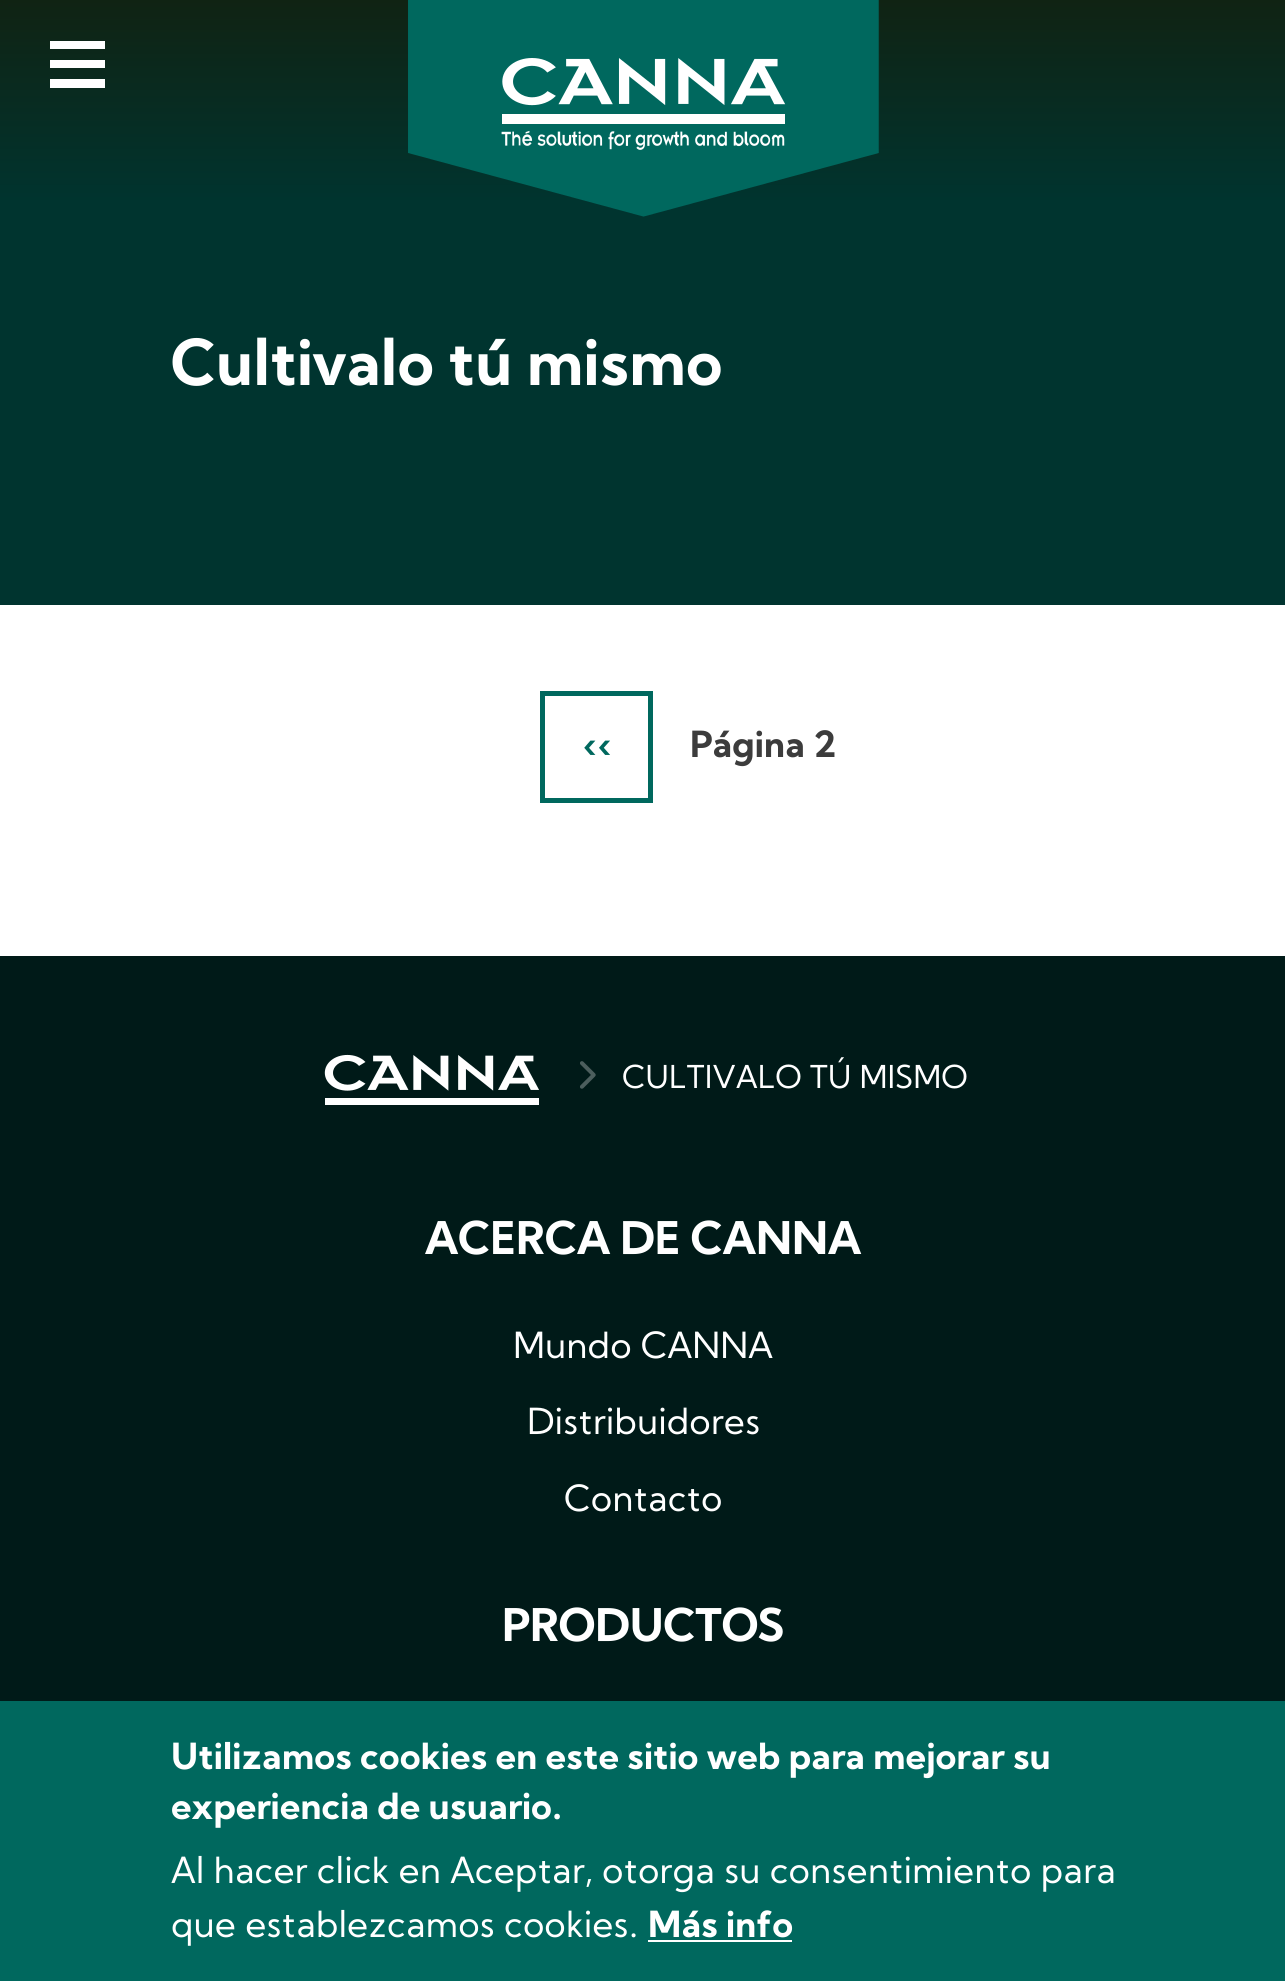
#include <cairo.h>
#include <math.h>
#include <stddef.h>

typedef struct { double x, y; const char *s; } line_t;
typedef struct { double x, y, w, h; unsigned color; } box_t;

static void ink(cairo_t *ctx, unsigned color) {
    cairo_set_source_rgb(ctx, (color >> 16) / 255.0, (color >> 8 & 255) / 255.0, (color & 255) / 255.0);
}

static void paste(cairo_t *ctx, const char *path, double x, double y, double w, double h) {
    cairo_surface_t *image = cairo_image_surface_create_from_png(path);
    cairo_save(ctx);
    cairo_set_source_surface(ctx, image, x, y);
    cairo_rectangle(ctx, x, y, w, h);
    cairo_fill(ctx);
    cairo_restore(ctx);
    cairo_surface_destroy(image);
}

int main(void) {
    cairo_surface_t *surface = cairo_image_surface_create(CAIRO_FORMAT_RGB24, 1285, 1981);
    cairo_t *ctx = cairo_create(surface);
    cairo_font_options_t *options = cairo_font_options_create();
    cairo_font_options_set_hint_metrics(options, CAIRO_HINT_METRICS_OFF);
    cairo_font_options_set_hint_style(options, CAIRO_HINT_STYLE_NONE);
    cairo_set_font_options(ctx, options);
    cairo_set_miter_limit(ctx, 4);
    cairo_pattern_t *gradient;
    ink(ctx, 0xFFFFFF);
    cairo_paint(ctx);
    gradient = cairo_pattern_create_linear(644, 203, 644, 0);
    cairo_pattern_add_color_stop_rgba(gradient, 0, 0, 0.204, 0.184, 1);
    cairo_pattern_add_color_stop_rgba(gradient, 1, 0.063, 0.137, 0.075, 1);
    cairo_set_source(ctx, gradient);
    cairo_pattern_destroy(gradient);
    cairo_rectangle(ctx, 0, 0, 1285, 203);
    cairo_fill(ctx);
    {
        static const box_t items[] = {
            {50, 41, 55, 8, 0xFFFFFF},
            {50, 60, 55, 8, 0xFFFFFF},
            {50, 79, 55, 9, 0xFFFFFF},
            {0, 203, 1285, 402, 0x00342F},
        };
        for (size_t i = 0; i < sizeof items / sizeof *items; i++) {
            ink(ctx, items[i].color);
            cairo_rectangle(ctx, items[i].x, items[i].y, items[i].w, items[i].h);
            cairo_fill(ctx);
        }
    }
    paste(ctx, "media/1.png", 408, 0, 471, 217);
    cairo_select_font_face(ctx, "Kumbh Sans", CAIRO_FONT_SLANT_NORMAL, CAIRO_FONT_WEIGHT_BOLD);
    cairo_set_font_size(ctx, 63);
    ink(ctx, 0xFFFFFF);
    cairo_move_to(ctx, 171, 385);
    cairo_show_text(ctx, "Cultivalo tú mismo");
    cairo_rectangle(ctx, 542.5, 693.5, 108, 107);
    ink(ctx, 0x00685E);
    cairo_set_line_width(ctx, 5);
    cairo_stroke(ctx);
    cairo_set_font_size(ctx, 36);
    cairo_move_to(ctx, 583, 757);
    cairo_show_text(ctx, "‹‹");
    ink(ctx, 0x3C3C3C);
    cairo_move_to(ctx, 690, 757);
    cairo_show_text(ctx, "Página 2");
    ink(ctx, 0x001A18);
    cairo_rectangle(ctx, 0, 956, 1285, 745);
    cairo_fill(ctx);
    paste(ctx, "media/2.png", 324, 1054, 215, 51);
    paste(ctx, "media/3.png", 580, 1061, 16, 28);
    cairo_select_font_face(ctx, "Kumbh Sans", CAIRO_FONT_SLANT_NORMAL, CAIRO_FONT_WEIGHT_NORMAL);
    cairo_set_font_size(ctx, 31.5);
    ink(ctx, 0xFFFFFF);
    cairo_move_to(ctx, 622, 1088);
    cairo_show_text(ctx, "CULTIVALO TÚ MISMO");
    cairo_select_font_face(ctx, "Kumbh Sans", CAIRO_FONT_SLANT_NORMAL, CAIRO_FONT_WEIGHT_BOLD);
    cairo_set_font_size(ctx, 45);
    cairo_move_to(ctx, 425, 1254);
    cairo_show_text(ctx, "ACERCA DE CANNA");
    cairo_select_font_face(ctx, "Kumbh Sans", CAIRO_FONT_SLANT_NORMAL, CAIRO_FONT_WEIGHT_NORMAL);
    cairo_set_font_size(ctx, 36);
    {
        static const line_t items[] = {
            {513, 1358, "Mundo CANNA"},
            {527, 1434, "Distribuidores"},
            {564, 1511, "Contacto"},
        };
        for (size_t i = 0; i < sizeof items / sizeof *items; i++) {
            cairo_move_to(ctx, items[i].x, items[i].y);
            cairo_show_text(ctx, items[i].s);
        }
    }
    cairo_select_font_face(ctx, "Kumbh Sans", CAIRO_FONT_SLANT_NORMAL, CAIRO_FONT_WEIGHT_BOLD);
    cairo_set_font_size(ctx, 45);
    cairo_move_to(ctx, 502, 1641);
    cairo_show_text(ctx, "PRODUCTOS");
    ink(ctx, 0x00685E);
    cairo_rectangle(ctx, 0, 1701, 1285, 280);
    cairo_fill(ctx);
    cairo_set_font_size(ctx, 36);
    ink(ctx, 0xFFFFFF);
    cairo_move_to(ctx, 171, 1769);
    cairo_show_text(ctx, "Utilizamos cookies en este sitio web para mejorar su");
    cairo_move_to(ctx, 171, 1819);
    cairo_show_text(ctx, "experiencia de usuario.");
    cairo_select_font_face(ctx, "Kumbh Sans", CAIRO_FONT_SLANT_NORMAL, CAIRO_FONT_WEIGHT_NORMAL);
    cairo_move_to(ctx, 171, 1883);
    cairo_show_text(ctx, "Al hacer click en Aceptar, otorga su consentimiento para");
    cairo_move_to(ctx, 171, 1937);
    cairo_show_text(ctx, "que establezcamos cookies.");
    cairo_select_font_face(ctx, "Kumbh Sans", CAIRO_FONT_SLANT_NORMAL, CAIRO_FONT_WEIGHT_BOLD);
    cairo_move_to(ctx, 648, 1937);
    cairo_show_text(ctx, "Más info");
    cairo_rectangle(ctx, 648, 1940, 144, 2);
    cairo_fill(ctx);
    cairo_surface_write_to_png(surface, "image.png");
    cairo_font_options_destroy(options);
    cairo_destroy(ctx);
    cairo_surface_destroy(surface);
    return 0;
}
